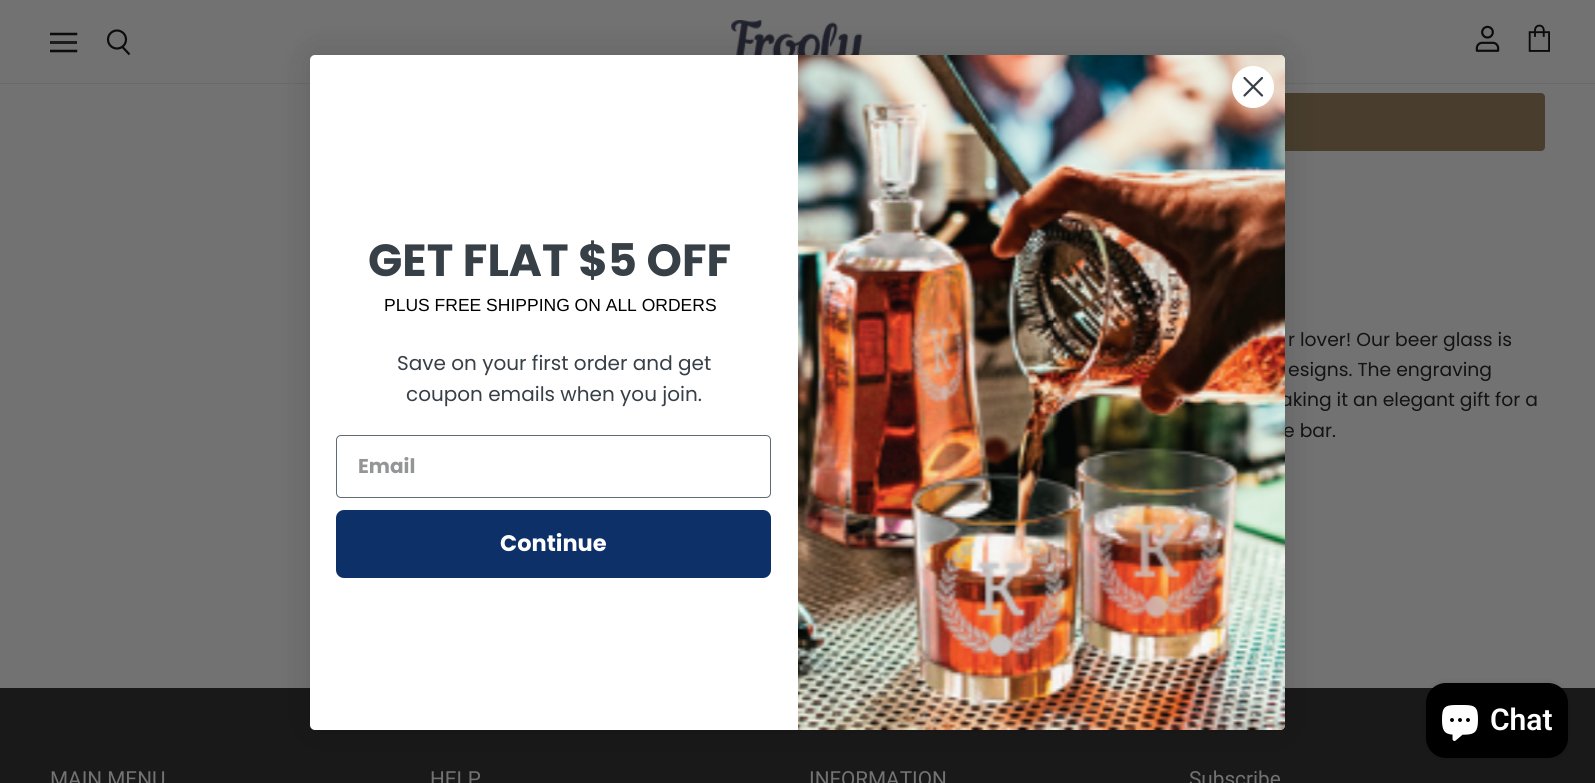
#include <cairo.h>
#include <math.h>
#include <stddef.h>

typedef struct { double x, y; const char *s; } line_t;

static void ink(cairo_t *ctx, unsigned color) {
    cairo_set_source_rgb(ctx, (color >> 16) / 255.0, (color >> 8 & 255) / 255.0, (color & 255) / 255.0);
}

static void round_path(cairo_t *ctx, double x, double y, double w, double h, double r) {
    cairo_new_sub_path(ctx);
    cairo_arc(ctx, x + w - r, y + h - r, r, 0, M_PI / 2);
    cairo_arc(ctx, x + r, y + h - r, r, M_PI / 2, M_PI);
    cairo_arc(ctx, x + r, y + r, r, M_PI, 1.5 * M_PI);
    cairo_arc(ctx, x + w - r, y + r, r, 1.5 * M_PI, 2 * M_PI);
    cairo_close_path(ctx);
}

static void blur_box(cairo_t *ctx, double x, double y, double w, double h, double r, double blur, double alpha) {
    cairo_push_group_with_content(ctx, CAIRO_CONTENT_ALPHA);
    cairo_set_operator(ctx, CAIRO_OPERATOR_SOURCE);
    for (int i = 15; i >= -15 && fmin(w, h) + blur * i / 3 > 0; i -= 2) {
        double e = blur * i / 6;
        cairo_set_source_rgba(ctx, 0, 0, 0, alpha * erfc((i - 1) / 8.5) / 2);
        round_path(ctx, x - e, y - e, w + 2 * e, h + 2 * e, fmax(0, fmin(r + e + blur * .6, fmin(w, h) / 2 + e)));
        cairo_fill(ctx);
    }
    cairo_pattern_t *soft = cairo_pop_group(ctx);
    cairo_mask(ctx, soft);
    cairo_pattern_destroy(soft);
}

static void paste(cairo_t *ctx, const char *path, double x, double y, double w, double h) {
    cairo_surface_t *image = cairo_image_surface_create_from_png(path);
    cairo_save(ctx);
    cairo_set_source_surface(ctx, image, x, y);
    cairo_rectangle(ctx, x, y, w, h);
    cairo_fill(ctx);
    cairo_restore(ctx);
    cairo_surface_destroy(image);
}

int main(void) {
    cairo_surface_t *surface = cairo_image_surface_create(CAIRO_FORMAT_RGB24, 1595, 783);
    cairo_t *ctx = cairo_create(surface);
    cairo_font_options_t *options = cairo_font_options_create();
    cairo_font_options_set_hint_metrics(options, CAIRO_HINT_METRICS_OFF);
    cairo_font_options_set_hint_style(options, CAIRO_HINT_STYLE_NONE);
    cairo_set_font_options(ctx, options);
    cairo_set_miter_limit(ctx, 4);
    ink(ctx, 0x727272);
    cairo_paint(ctx);
    ink(ctx, 0x6A6A6A);
    cairo_rectangle(ctx, 0, 83, 1595, 1);
    cairo_fill(ctx);
    cairo_save(ctx);
    cairo_rectangle(ctx, 50, 31, 28, 23);
    cairo_clip(ctx);
    cairo_new_path(ctx);
    cairo_move_to(ctx, 76, 34);
    cairo_line_to(ctx, 51, 34);
    ink(ctx, 0x0C0C0C);
    cairo_set_line_width(ctx, 2.5);
    cairo_set_line_cap(ctx, CAIRO_LINE_CAP_SQUARE);
    cairo_set_line_join(ctx, CAIRO_LINE_JOIN_ROUND);
    cairo_stroke(ctx);
    cairo_restore(ctx);
    ink(ctx, 0x1D1D1D);
    cairo_rectangle(ctx, 50, 41, 27, 3);
    cairo_fill(ctx);
    cairo_save(ctx);
    cairo_rectangle(ctx, 50, 31, 28, 23);
    cairo_clip(ctx);
    cairo_new_path(ctx);
    cairo_move_to(ctx, 76, 51);
    cairo_line_to(ctx, 51, 51);
    ink(ctx, 0x0C0C0C);
    cairo_set_line_width(ctx, 2.5);
    cairo_set_line_cap(ctx, CAIRO_LINE_CAP_SQUARE);
    cairo_set_line_join(ctx, CAIRO_LINE_JOIN_ROUND);
    cairo_stroke(ctx);
    cairo_restore(ctx);
    cairo_new_path(ctx);
    cairo_move_to(ctx, 129.5, 54.5);
    cairo_line_to(ctx, 122, 46.5);
    ink(ctx, 0x0C0C0C);
    cairo_set_line_width(ctx, 2.2);
    cairo_stroke(ctx);
    cairo_arc(ctx, 117, 39.5, 9, 0, 2 * M_PI);
    cairo_stroke(ctx);
    paste(ctx, "media/1.png", 731, 20, 132, 35);
    paste(ctx, "media/2.png", 1475, 25, 25, 27);
    paste(ctx, "media/3.png", 1528, 24, 22, 28);
    ink(ctx, 0x493E2E);
    round_path(ctx, 835.5, 93.5, 709, 57, 3.5);
    cairo_fill_preserve(ctx);
    cairo_set_line_width(ctx, 1);
    cairo_stroke(ctx);
    ink(ctx, 0x191919);
    cairo_rectangle(ctx, 0, 688, 1595, 95);
    cairo_fill(ctx);
    ink(ctx, 0x000000);
    blur_box(ctx, 310, 55, 975, 675, 5, 19, 0.15);
    cairo_select_font_face(ctx, "Poppins", CAIRO_FONT_SLANT_NORMAL, CAIRO_FONT_WEIGHT_NORMAL);
    cairo_set_font_size(ctx, 18.75);
    ink(ctx, 0x131313);
    cairo_move_to(ctx, 1280, 406);
    cairo_show_text(ctx, "aking it an elegant gift for a");
    cairo_move_to(ctx, 1283, 437);
    cairo_show_text(ctx, "e bar.");
    ink(ctx, 0xFFFFFF);
    round_path(ctx, 310, 55, 975, 675, 5);
    cairo_fill(ctx);
    paste(ctx, "media/4.png", 798, 55, 487, 675);
    cairo_arc(ctx, 1253, 87, 21, 0, 2 * M_PI);
    cairo_fill(ctx);
    cairo_new_path(ctx);
    cairo_move_to(ctx, 1244.5, 78);
    cairo_line_to(ctx, 1262, 95.5);
    cairo_move_to(ctx, 1244.5, 95.5);
    cairo_line_to(ctx, 1262, 78);
    cairo_close_path(ctx);
    ink(ctx, 0x373F47);
    cairo_set_line_width(ctx, 2.2);
    cairo_set_line_cap(ctx, CAIRO_LINE_CAP_ROUND);
    cairo_set_line_join(ctx, CAIRO_LINE_JOIN_ROUND);
    cairo_stroke(ctx);
    cairo_select_font_face(ctx, "Poppins", CAIRO_FONT_SLANT_NORMAL, CAIRO_FONT_WEIGHT_BOLD);
    cairo_set_font_size(ctx, 45);
    cairo_move_to(ctx, 368, 276);
    cairo_show_text(ctx, "GET FLAT $5 OFF");
    cairo_select_font_face(ctx, "Liberation Sans", CAIRO_FONT_SLANT_NORMAL, CAIRO_FONT_WEIGHT_NORMAL);
    cairo_set_font_size(ctx, 17.5);
    ink(ctx, 0x000000);
    cairo_move_to(ctx, 384, 311);
    cairo_show_text(ctx, "PLUS FREE SHIPPING ON ALL ORDERS");
    cairo_select_font_face(ctx, "Poppins", CAIRO_FONT_SLANT_NORMAL, CAIRO_FONT_WEIGHT_NORMAL);
    cairo_set_font_size(ctx, 20);
    ink(ctx, 0x373F47);
    cairo_move_to(ctx, 397, 370);
    cairo_show_text(ctx, "Save on your first order and get");
    cairo_move_to(ctx, 406, 401);
    cairo_show_text(ctx, "coupon emails when you join.");
    round_path(ctx, 336.5, 435.5, 434, 62, 4.5);
    ink(ctx, 0x606A72);
    cairo_set_line_width(ctx, 1);
    cairo_set_line_cap(ctx, CAIRO_LINE_CAP_BUTT);
    cairo_set_line_join(ctx, CAIRO_LINE_JOIN_MITER);
    cairo_stroke(ctx);
    cairo_select_font_face(ctx, "Poppins", CAIRO_FONT_SLANT_NORMAL, CAIRO_FONT_WEIGHT_BOLD);
    ink(ctx, 0x949596);
    cairo_move_to(ctx, 358, 473);
    cairo_show_text(ctx, "Email");
    ink(ctx, 0x0E3069);
    round_path(ctx, 336, 510, 435, 68, 8);
    cairo_fill(ctx);
    cairo_set_font_size(ctx, 22.5);
    ink(ctx, 0xFFFFFF);
    cairo_move_to(ctx, 500, 551);
    cairo_show_text(ctx, "Continue");
    cairo_select_font_face(ctx, "Poppins", CAIRO_FONT_SLANT_NORMAL, CAIRO_FONT_WEIGHT_NORMAL);
    cairo_set_font_size(ctx, 18.75);
    ink(ctx, 0x131313);
    cairo_move_to(ctx, 1288, 346);
    cairo_show_text(ctx, "r lover! Our beer glass is");
    cairo_move_to(ctx, 1288, 376);
    cairo_show_text(ctx, "esigns. The engraving");
    ink(ctx, 0x000000);
    blur_box(ctx, 1426, 683, 142, 75, 20, 3, 0.15);
    ink(ctx, 0x000000);
    round_path(ctx, 1426, 683, 142, 75, 20);
    cairo_fill(ctx);
    paste(ctx, "media/5.png", 1442, 705, 36, 36);
    cairo_select_font_face(ctx, "Roboto SemiBold", CAIRO_FONT_SLANT_NORMAL, CAIRO_FONT_WEIGHT_NORMAL);
    cairo_set_font_size(ctx, 30);
    ink(ctx, 0xFFFFFF);
    cairo_move_to(ctx, 1490, 730);
    cairo_show_text(ctx, "Chat");
    cairo_select_font_face(ctx, "Roboto", CAIRO_FONT_SLANT_NORMAL, CAIRO_FONT_WEIGHT_NORMAL);
    cairo_set_font_size(ctx, 20.75);
    ink(ctx, 0x727272);
    {
        static const line_t items[] = {
            {50, 786, "MAIN MENU"},
            {430, 786, "HELP"},
            {809, 786, "INFORMATION"},
            {1189, 786, "Subscribe"},
        };
        for (size_t i = 0; i < sizeof items / sizeof *items; i++) {
            cairo_move_to(ctx, items[i].x, items[i].y);
            cairo_show_text(ctx, items[i].s);
        }
    }
    cairo_surface_write_to_png(surface, "image.png");
    cairo_font_options_destroy(options);
    cairo_destroy(ctx);
    cairo_surface_destroy(surface);
    return 0;
}
